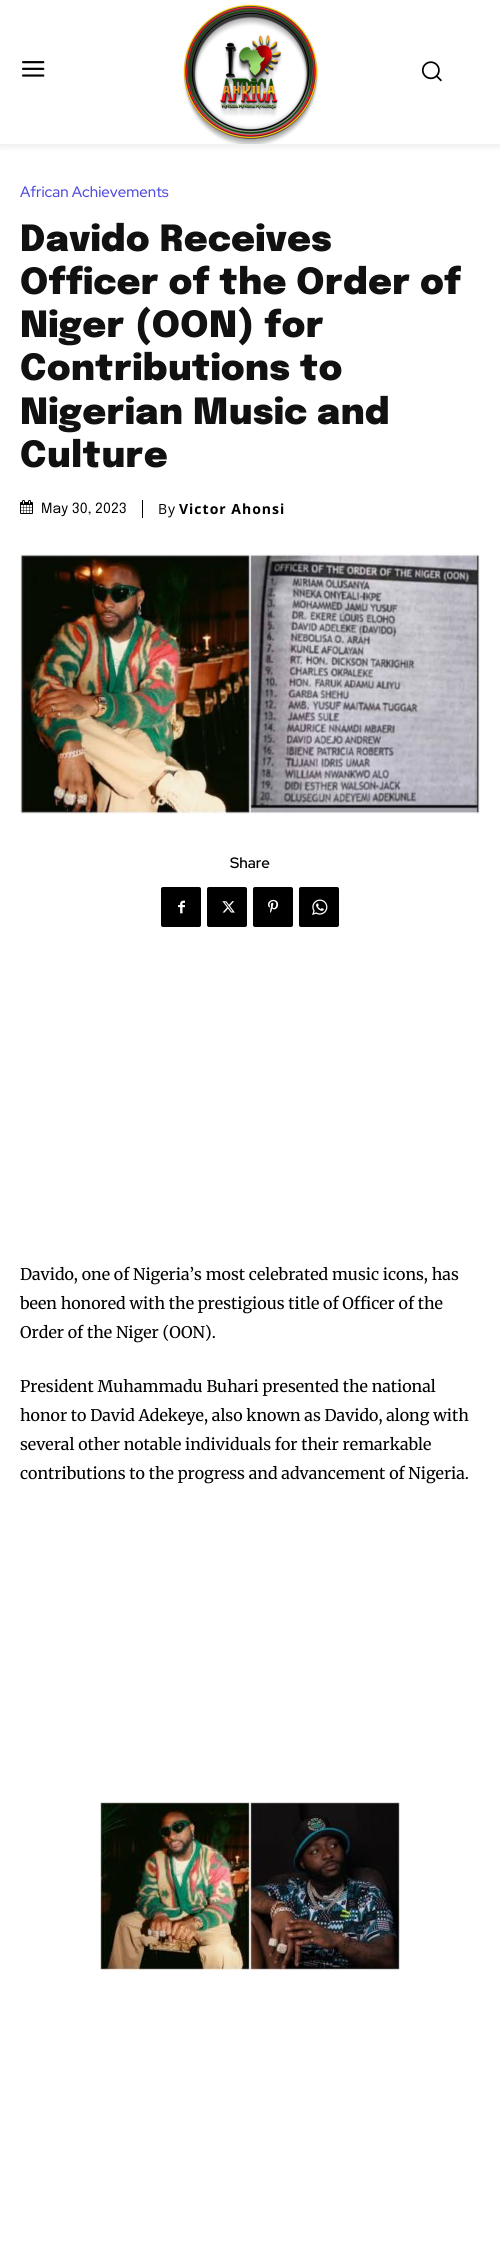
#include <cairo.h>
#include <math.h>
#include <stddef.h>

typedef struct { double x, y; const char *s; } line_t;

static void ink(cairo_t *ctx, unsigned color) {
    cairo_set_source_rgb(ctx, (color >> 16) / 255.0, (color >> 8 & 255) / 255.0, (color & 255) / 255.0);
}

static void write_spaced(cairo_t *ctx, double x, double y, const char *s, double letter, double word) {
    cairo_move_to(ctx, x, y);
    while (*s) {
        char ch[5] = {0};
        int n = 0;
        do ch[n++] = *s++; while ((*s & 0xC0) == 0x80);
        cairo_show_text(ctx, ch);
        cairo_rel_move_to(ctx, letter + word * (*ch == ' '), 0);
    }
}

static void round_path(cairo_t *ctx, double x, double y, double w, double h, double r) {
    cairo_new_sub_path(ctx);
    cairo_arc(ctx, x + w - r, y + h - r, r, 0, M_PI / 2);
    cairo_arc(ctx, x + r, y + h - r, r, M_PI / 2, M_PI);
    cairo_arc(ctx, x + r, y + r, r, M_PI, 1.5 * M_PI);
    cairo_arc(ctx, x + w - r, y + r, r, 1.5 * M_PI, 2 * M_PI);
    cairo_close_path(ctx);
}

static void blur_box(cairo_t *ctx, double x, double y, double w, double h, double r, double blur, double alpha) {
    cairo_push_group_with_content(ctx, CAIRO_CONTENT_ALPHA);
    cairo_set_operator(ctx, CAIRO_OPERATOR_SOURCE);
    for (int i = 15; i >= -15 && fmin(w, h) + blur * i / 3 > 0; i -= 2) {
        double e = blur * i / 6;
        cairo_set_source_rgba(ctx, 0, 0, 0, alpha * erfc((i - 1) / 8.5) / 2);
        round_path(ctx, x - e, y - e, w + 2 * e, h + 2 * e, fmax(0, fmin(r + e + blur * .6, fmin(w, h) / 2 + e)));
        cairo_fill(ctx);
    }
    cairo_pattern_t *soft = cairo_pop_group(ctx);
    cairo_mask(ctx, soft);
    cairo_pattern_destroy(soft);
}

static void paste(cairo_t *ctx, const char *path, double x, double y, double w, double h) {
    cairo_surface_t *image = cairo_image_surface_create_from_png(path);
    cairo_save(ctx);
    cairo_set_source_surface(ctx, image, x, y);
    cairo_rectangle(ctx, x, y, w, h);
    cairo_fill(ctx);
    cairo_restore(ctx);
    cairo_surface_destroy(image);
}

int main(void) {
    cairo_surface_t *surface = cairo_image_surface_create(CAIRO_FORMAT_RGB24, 500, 2264);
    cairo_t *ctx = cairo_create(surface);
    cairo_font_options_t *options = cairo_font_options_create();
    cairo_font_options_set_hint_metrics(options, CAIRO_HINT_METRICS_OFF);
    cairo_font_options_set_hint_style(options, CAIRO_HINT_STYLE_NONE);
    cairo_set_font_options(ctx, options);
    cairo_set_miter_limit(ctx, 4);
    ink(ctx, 0xFFFFFF);
    cairo_paint(ctx);
    paste(ctx, "media/1.png", 22, 61, 23, 16);
    paste(ctx, "media/2.png", 183, 4, 136, 140);
    paste(ctx, "media/3.png", 421, 61, 21, 21);
    cairo_save(ctx);
    cairo_rectangle(ctx, 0, 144, 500, 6);
    cairo_clip(ctx);
    ink(ctx, 0x000000);
    blur_box(ctx, 0, 2, 500, 144, 0, 5, 0.09);
    cairo_restore(ctx);
    cairo_select_font_face(ctx, "Red Hat Display Medium", CAIRO_FONT_SLANT_NORMAL, CAIRO_FONT_WEIGHT_NORMAL);
    cairo_set_font_size(ctx, 15);
    ink(ctx, 0x504BDC);
    cairo_move_to(ctx, 20, 197);
    cairo_show_text(ctx, "African Achievements");
    cairo_select_font_face(ctx, "Epilogue Black", CAIRO_FONT_SLANT_NORMAL, CAIRO_FONT_WEIGHT_NORMAL);
    cairo_set_font_size(ctx, 36);
    ink(ctx, 0x111111);
    {
        static const line_t items[] = {
            {20, 251, "Davido Receives"},
            {20, 294, "Officer of the Order of"},
            {20, 337, "Niger (OON) for"},
            {20, 380, "Contributions to"},
            {20, 424, "Nigerian Music and"},
            {20, 467, "Culture"},
        };
        for (size_t i = 0; i < sizeof items / sizeof *items; i++) {
            write_spaced(ctx, items[i].x, items[i].y, items[i].s, 0.5, 0);
        }
    }
    paste(ctx, "media/4.png", 20, 500, 13, 14);
    cairo_select_font_face(ctx, "Epilogue", CAIRO_FONT_SLANT_NORMAL, CAIRO_FONT_WEIGHT_NORMAL);
    cairo_set_font_size(ctx, 14);
    ink(ctx, 0x000000);
    cairo_move_to(ctx, 41, 513);
    cairo_show_text(ctx, "May 30, 2023");
    cairo_rectangle(ctx, 142, 500, 1, 18);
    cairo_fill(ctx);
    cairo_select_font_face(ctx, "Open Sans", CAIRO_FONT_SLANT_NORMAL, CAIRO_FONT_WEIGHT_NORMAL);
    write_spaced(ctx, 158, 514, "By", 1, 0);
    cairo_select_font_face(ctx, "Open Sans", CAIRO_FONT_SLANT_NORMAL, CAIRO_FONT_WEIGHT_BOLD);
    write_spaced(ctx, 179, 514, "Victor Ahonsi", 1, 0);
    paste(ctx, "media/5.png", 20, 554, 460, 260);
    cairo_select_font_face(ctx, "Red Hat Display SemiBold", CAIRO_FONT_SLANT_NORMAL, CAIRO_FONT_WEIGHT_NORMAL);
    cairo_set_font_size(ctx, 15);
    cairo_move_to(ctx, 230, 868);
    cairo_show_text(ctx, "Share");
    round_path(ctx, 161, 887, 40, 40, 2);
    cairo_fill(ctx);
    paste(ctx, "media/6.png", 178, 900, 7, 14);
    round_path(ctx, 207, 887, 40, 40, 2);
    cairo_fill(ctx);
    paste(ctx, "media/7.png", 222, 901, 13, 12);
    round_path(ctx, 253, 887, 40, 40, 2);
    cairo_fill(ctx);
    paste(ctx, "media/8.png", 268, 899, 11, 14);
    round_path(ctx, 299, 887, 40, 40, 2);
    cairo_fill(ctx);
    paste(ctx, "media/9.png", 312, 899, 16, 16);
    cairo_select_font_face(ctx, "Merriweather Light", CAIRO_FONT_SLANT_NORMAL, CAIRO_FONT_WEIGHT_NORMAL);
    cairo_set_font_size(ctx, 16);
    {
        static const line_t items[] = {
            {20, 1280, "Davido, one of Nigeria’s most celebrated music icons, has"},
            {20, 1309, "been honored with the prestigious title of Officer of the"},
            {20, 1338, "Order of the Niger (OON)."},
            {20, 1392, "President Muhammadu Buhari presented the national"},
            {20, 1421, "honor to David Adekeye, also known as Davido, along with"},
            {20, 1450, "several other notable individuals for their remarkable"},
            {20, 1479, "contributions to the progress and advancement of Nigeria."},
        };
        for (size_t i = 0; i < sizeof items / sizeof *items; i++) {
            cairo_move_to(ctx, items[i].x, items[i].y);
            cairo_show_text(ctx, items[i].s);
        }
    }
    paste(ctx, "media/10.png", 100, 1802, 300, 168);
    cairo_surface_write_to_png(surface, "image.png");
    cairo_font_options_destroy(options);
    cairo_destroy(ctx);
    cairo_surface_destroy(surface);
    return 0;
}
